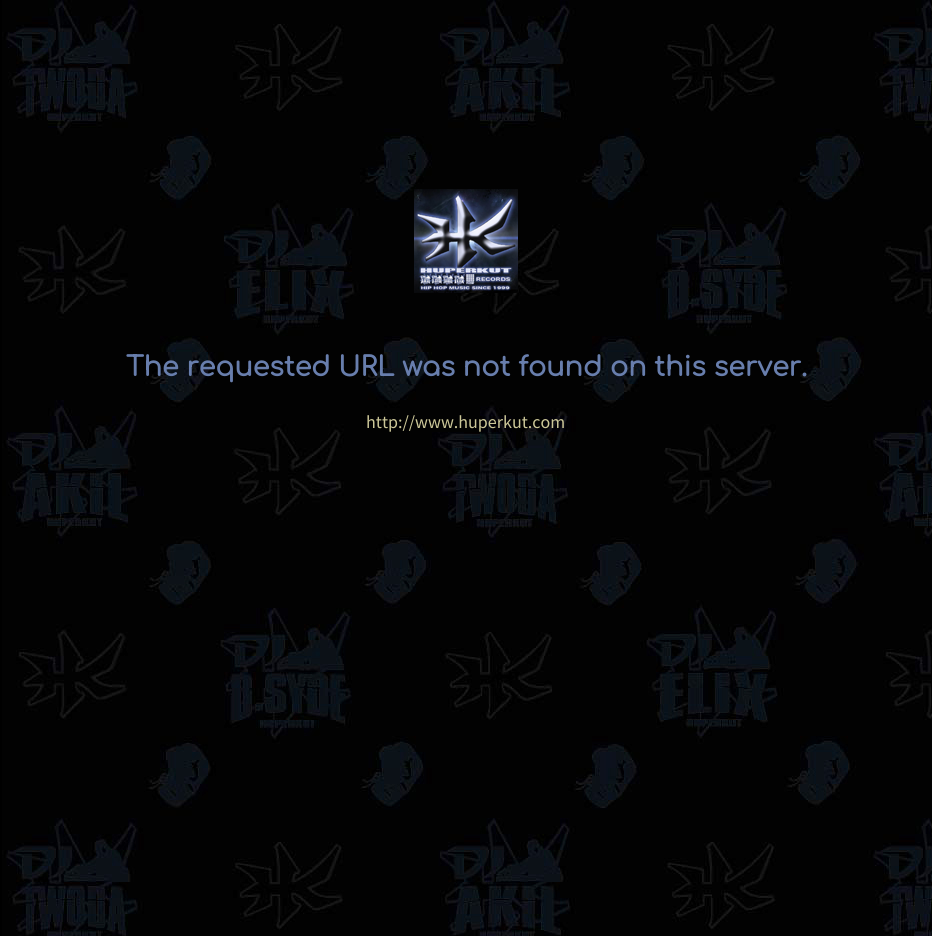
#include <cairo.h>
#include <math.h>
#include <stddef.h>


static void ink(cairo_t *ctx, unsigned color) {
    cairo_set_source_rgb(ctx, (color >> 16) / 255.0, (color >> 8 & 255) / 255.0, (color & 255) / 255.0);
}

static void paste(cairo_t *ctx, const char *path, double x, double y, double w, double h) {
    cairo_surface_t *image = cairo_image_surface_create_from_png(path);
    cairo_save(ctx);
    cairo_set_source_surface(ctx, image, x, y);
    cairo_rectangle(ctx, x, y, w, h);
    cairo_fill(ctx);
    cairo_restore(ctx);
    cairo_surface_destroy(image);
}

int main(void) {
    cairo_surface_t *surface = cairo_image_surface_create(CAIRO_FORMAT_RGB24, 932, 936);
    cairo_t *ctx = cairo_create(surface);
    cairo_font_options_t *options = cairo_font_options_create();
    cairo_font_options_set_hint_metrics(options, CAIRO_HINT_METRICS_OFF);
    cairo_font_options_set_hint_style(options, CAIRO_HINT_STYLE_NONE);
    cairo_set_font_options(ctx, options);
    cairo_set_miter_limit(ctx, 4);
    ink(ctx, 0x000000);
    cairo_paint(ctx);
    paste(ctx, "media/1.png", 2, 0, 930, 936);
    paste(ctx, "media/2.png", 414, 189, 104, 104);
    cairo_select_font_face(ctx, "Comfortaa", CAIRO_FONT_SLANT_NORMAL, CAIRO_FONT_WEIGHT_BOLD);
    cairo_set_font_size(ctx, 27);
    ink(ctx, 0x687EAD);
    cairo_move_to(ctx, 126, 376);
    cairo_show_text(ctx, "The requested URL was not found on this server.");
    cairo_select_font_face(ctx, "Source Sans Pro", CAIRO_FONT_SLANT_NORMAL, CAIRO_FONT_WEIGHT_NORMAL);
    cairo_set_font_size(ctx, 18);
    ink(ctx, 0xCCC798);
    cairo_move_to(ctx, 366, 428);
    cairo_show_text(ctx, "http://www.huperkut.com");
    cairo_surface_write_to_png(surface, "image.png");
    cairo_font_options_destroy(options);
    cairo_destroy(ctx);
    cairo_surface_destroy(surface);
    return 0;
}
